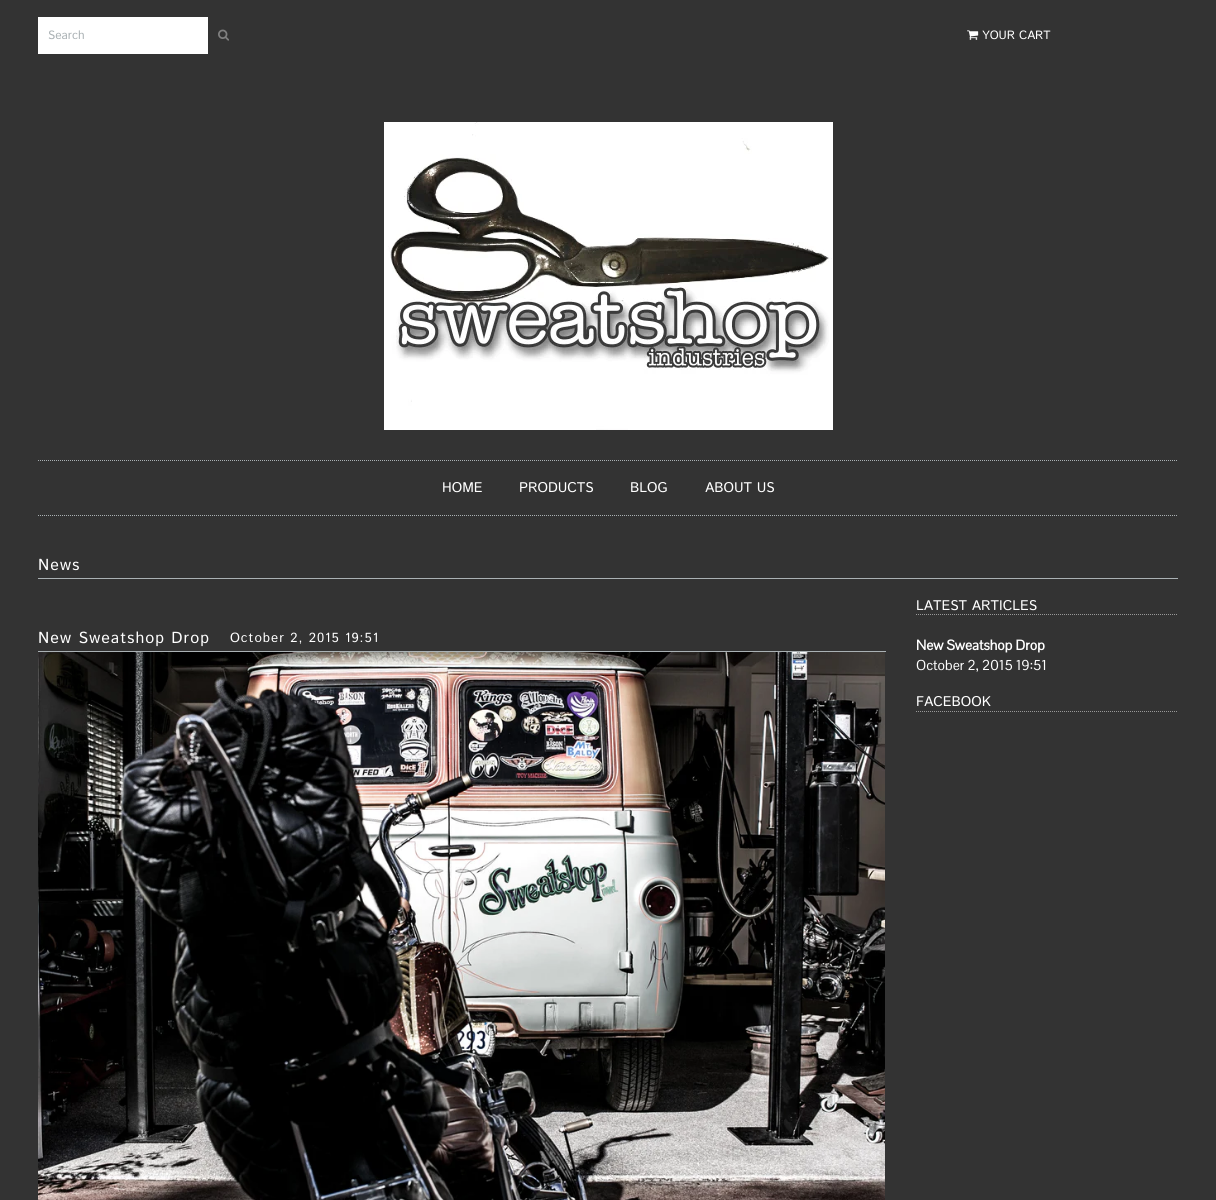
#include <cairo.h>
#include <math.h>
#include <stddef.h>

typedef struct { double x, y; const char *s; } line_t;

static void ink(cairo_t *ctx, unsigned color) {
    cairo_set_source_rgb(ctx, (color >> 16) / 255.0, (color >> 8 & 255) / 255.0, (color & 255) / 255.0);
}

static void write_spaced(cairo_t *ctx, double x, double y, const char *s, double letter, double word) {
    cairo_move_to(ctx, x, y);
    while (*s) {
        char ch[5] = {0};
        int n = 0;
        do ch[n++] = *s++; while ((*s & 0xC0) == 0x80);
        cairo_show_text(ctx, ch);
        cairo_rel_move_to(ctx, letter + word * (*ch == ' '), 0);
    }
}

static void paste(cairo_t *ctx, const char *path, double x, double y, double w, double h) {
    cairo_surface_t *image = cairo_image_surface_create_from_png(path);
    cairo_save(ctx);
    cairo_set_source_surface(ctx, image, x, y);
    cairo_rectangle(ctx, x, y, w, h);
    cairo_fill(ctx);
    cairo_restore(ctx);
    cairo_surface_destroy(image);
}

int main(void) {
    cairo_surface_t *surface = cairo_image_surface_create(CAIRO_FORMAT_RGB24, 1216, 1200);
    cairo_t *ctx = cairo_create(surface);
    cairo_font_options_t *options = cairo_font_options_create();
    cairo_font_options_set_hint_metrics(options, CAIRO_HINT_METRICS_OFF);
    cairo_font_options_set_hint_style(options, CAIRO_HINT_STYLE_NONE);
    cairo_set_font_options(ctx, options);
    cairo_set_miter_limit(ctx, 4);
    ink(ctx, 0x333333);
    cairo_paint(ctx);
    ink(ctx, 0xFFFFFF);
    cairo_rectangle(ctx, 38, 17, 170, 37);
    cairo_fill(ctx);
    cairo_select_font_face(ctx, "Istok Web", CAIRO_FONT_SLANT_NORMAL, CAIRO_FONT_WEIGHT_NORMAL);
    cairo_set_font_size(ctx, 12);
    ink(ctx, 0xAAB1B4);
    cairo_move_to(ctx, 48, 39);
    cairo_show_text(ctx, "Search");
    paste(ctx, "media/1.png", 218, 29, 11, 12);
    paste(ctx, "media/2.png", 967, 30, 12, 10);
    ink(ctx, 0xFFFFFF);
    cairo_move_to(ctx, 982, 39);
    cairo_show_text(ctx, "YOUR CART");
    paste(ctx, "media/3.png", 384, 122, 449, 308);
    cairo_new_path(ctx);
    cairo_move_to(ctx, 38, 460.5);
    cairo_line_to(ctx, 1178, 460.5);
    ink(ctx, 0xAAB1B4);
    cairo_set_line_width(ctx, 1);
    cairo_set_dash(ctx, (double[]){1, 1}, 2, 0);
    cairo_stroke(ctx);
    cairo_new_path(ctx);
    cairo_move_to(ctx, 38, 515.5);
    cairo_line_to(ctx, 1178, 515.5);
    cairo_stroke(ctx);
    cairo_set_font_size(ctx, 14);
    ink(ctx, 0xFFFFFF);
    {
        static const line_t items[] = {
            {442, 492, "HOME"},
            {519, 492, "PRODUCTS"},
            {630, 492, "BLOG"},
            {705, 492, "ABOUT US"},
        };
        for (size_t i = 0; i < sizeof items / sizeof *items; i++) {
            cairo_move_to(ctx, items[i].x, items[i].y);
            cairo_show_text(ctx, items[i].s);
        }
    }
    ink(ctx, 0xAAB1B4);
    cairo_rectangle(ctx, 38, 578, 1140, 1);
    cairo_fill(ctx);
    cairo_set_font_size(ctx, 16);
    ink(ctx, 0xFFFFFF);
    write_spaced(ctx, 38, 570, "News", 1, 0);
    ink(ctx, 0xAAB1B4);
    cairo_rectangle(ctx, 38, 651, 848, 1);
    cairo_fill(ctx);
    ink(ctx, 0xFFFFFF);
    write_spaced(ctx, 38, 643, "New Sweatshop Drop", 1, 0);
    cairo_set_font_size(ctx, 13.25);
    write_spaced(ctx, 230, 642, "October 2, 2015 19:51", 1, 0);
    paste(ctx, "media/4.png", 38, 652, 847, 548);
    cairo_new_path(ctx);
    cairo_move_to(ctx, 916, 614.5);
    cairo_line_to(ctx, 1178, 614.5);
    ink(ctx, 0x999999);
    cairo_stroke(ctx);
    cairo_set_font_size(ctx, 14);
    ink(ctx, 0xFFFFFF);
    cairo_move_to(ctx, 916, 610);
    cairo_show_text(ctx, "LATEST ARTICLES");
    cairo_select_font_face(ctx, "Pontano Sans", CAIRO_FONT_SLANT_NORMAL, CAIRO_FONT_WEIGHT_BOLD);
    cairo_move_to(ctx, 916, 650);
    cairo_show_text(ctx, "New Sweatshop Drop");
    cairo_select_font_face(ctx, "Pontano Sans", CAIRO_FONT_SLANT_NORMAL, CAIRO_FONT_WEIGHT_NORMAL);
    cairo_move_to(ctx, 916, 670);
    cairo_show_text(ctx, "October 2, 2015 19:51");
    cairo_new_path(ctx);
    cairo_move_to(ctx, 916, 711.5);
    cairo_line_to(ctx, 1178, 711.5);
    ink(ctx, 0x999999);
    cairo_stroke(ctx);
    cairo_select_font_face(ctx, "Istok Web", CAIRO_FONT_SLANT_NORMAL, CAIRO_FONT_WEIGHT_NORMAL);
    ink(ctx, 0xFFFFFF);
    cairo_move_to(ctx, 916, 706);
    cairo_show_text(ctx, "FACEBOOK");
    cairo_surface_write_to_png(surface, "image.png");
    cairo_font_options_destroy(options);
    cairo_destroy(ctx);
    cairo_surface_destroy(surface);
    return 0;
}
